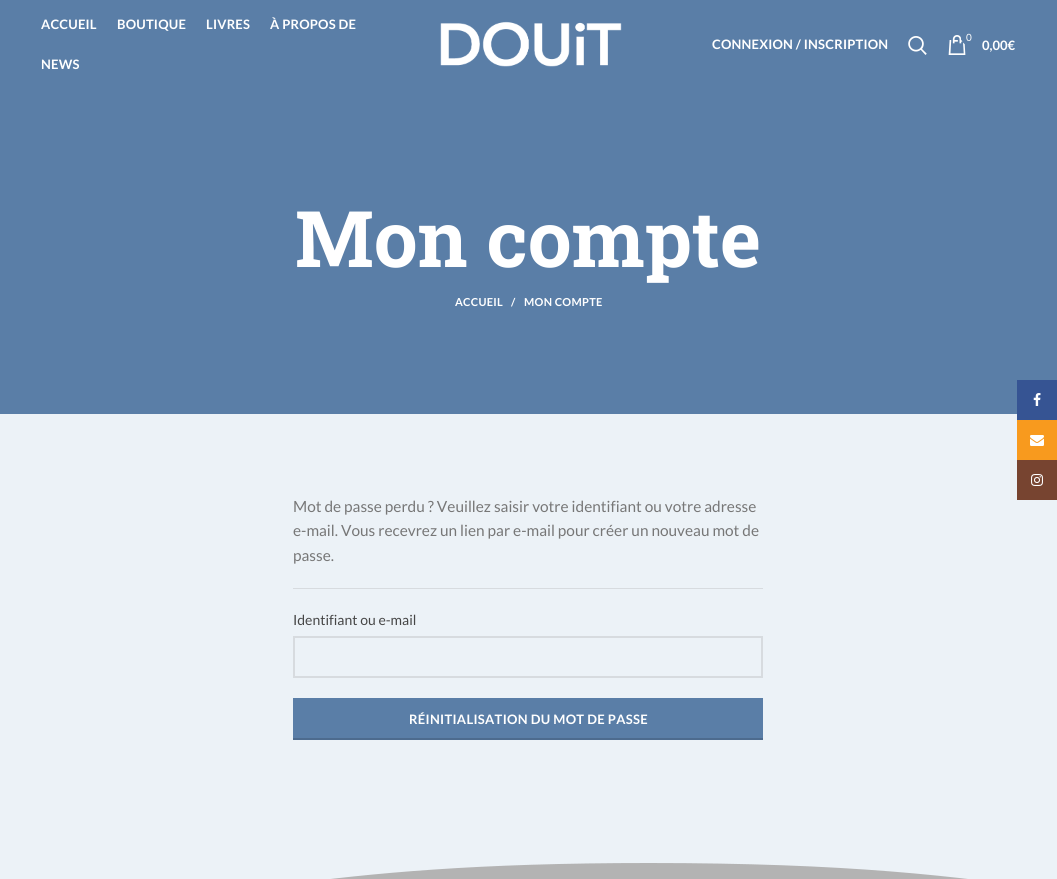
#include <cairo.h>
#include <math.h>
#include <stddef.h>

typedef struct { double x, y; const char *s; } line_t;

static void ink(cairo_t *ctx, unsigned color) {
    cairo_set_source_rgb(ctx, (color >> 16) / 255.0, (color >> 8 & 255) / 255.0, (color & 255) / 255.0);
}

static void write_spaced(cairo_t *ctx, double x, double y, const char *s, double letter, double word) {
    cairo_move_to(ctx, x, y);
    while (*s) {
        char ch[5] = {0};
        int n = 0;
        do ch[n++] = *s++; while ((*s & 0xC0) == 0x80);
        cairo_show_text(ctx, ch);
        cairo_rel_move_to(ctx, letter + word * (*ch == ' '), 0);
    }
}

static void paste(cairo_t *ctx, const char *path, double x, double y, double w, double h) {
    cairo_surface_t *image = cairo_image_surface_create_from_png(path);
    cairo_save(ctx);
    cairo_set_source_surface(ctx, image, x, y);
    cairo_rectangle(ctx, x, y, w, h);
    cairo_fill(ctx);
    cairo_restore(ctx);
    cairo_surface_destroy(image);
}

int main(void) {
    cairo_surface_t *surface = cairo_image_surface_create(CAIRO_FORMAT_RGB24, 1057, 879);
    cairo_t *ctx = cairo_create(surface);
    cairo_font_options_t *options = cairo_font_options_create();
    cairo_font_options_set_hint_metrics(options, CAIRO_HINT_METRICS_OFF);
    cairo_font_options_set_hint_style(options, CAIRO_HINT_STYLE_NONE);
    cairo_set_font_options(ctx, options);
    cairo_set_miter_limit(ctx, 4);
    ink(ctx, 0x5A7EA7);
    cairo_paint(ctx);
    cairo_select_font_face(ctx, "Lato", CAIRO_FONT_SLANT_NORMAL, CAIRO_FONT_WEIGHT_BOLD);
    cairo_set_font_size(ctx, 13);
    ink(ctx, 0xFFFFFF);
    {
        static const line_t items[] = {
            {41, 29, "ACCUEIL"},
            {117, 29, "BOUTIQUE"},
            {206, 29, "LIVRES"},
            {270, 29, "À PROPOS DE"},
            {41, 69, "NEWS"},
        };
        for (size_t i = 0; i < sizeof items / sizeof *items; i++) {
            write_spaced(ctx, items[i].x, items[i].y, items[i].s, 0.2, 0);
        }
    }
    paste(ctx, "media/1.png", 440, 21, 182, 46);
    write_spaced(ctx, 712, 49, "CONNEXION / INSCRIPTION", 0.2, 0);
    paste(ctx, "media/2.png", 908, 36, 19, 19);
    paste(ctx, "media/3.png", 948, 35, 18, 20);
    ink(ctx, 0x5A7EA7);
    cairo_arc(ctx, 968.5, 37.5, 7.5, 0, 2 * M_PI);
    cairo_fill(ctx);
    cairo_select_font_face(ctx, "Lato", CAIRO_FONT_SLANT_NORMAL, CAIRO_FONT_WEIGHT_NORMAL);
    cairo_set_font_size(ctx, 10);
    ink(ctx, 0xFFFFFF);
    cairo_move_to(ctx, 966, 41);
    cairo_show_text(ctx, "0");
    cairo_select_font_face(ctx, "Lato", CAIRO_FONT_SLANT_NORMAL, CAIRO_FONT_WEIGHT_BOLD);
    cairo_set_font_size(ctx, 13);
    cairo_move_to(ctx, 982, 50);
    cairo_show_text(ctx, "0,00€");
    ink(ctx, 0xECF2F7);
    cairo_rectangle(ctx, 0, 414, 1057, 426);
    cairo_fill(ctx);
    cairo_select_font_face(ctx, "Roboto Slab", CAIRO_FONT_SLANT_NORMAL, CAIRO_FONT_WEIGHT_BOLD);
    cairo_set_font_size(ctx, 78);
    ink(ctx, 0xFFFFFF);
    cairo_move_to(ctx, 295, 267);
    cairo_show_text(ctx, "Mon compte");
    cairo_select_font_face(ctx, "Lato", CAIRO_FONT_SLANT_NORMAL, CAIRO_FONT_WEIGHT_BOLD);
    cairo_set_font_size(ctx, 11);
    {
        static const line_t items[] = {
            {455, 306, "ACCUEIL"},
            {511, 306, "/"},
            {524, 306, "MON COMPTE"},
        };
        for (size_t i = 0; i < sizeof items / sizeof *items; i++) {
            write_spaced(ctx, items[i].x, items[i].y, items[i].s, 0.3, 0);
        }
    }
    cairo_select_font_face(ctx, "Lato", CAIRO_FONT_SLANT_NORMAL, CAIRO_FONT_WEIGHT_NORMAL);
    cairo_set_font_size(ctx, 15.4);
    ink(ctx, 0x777777);
    {
        static const line_t items[] = {
            {293, 512, "Mot de passe perdu ? Veuillez saisir votre identifiant ou votre adresse"},
            {293, 536, "e-mail. Vous recevrez un lien par e-mail pour créer un nouveau mot de"},
            {293, 561, "passe."},
        };
        for (size_t i = 0; i < sizeof items / sizeof *items; i++) {
            cairo_move_to(ctx, items[i].x, items[i].y);
            cairo_show_text(ctx, items[i].s);
        }
    }
    ink(ctx, 0xD7DBDF);
    cairo_rectangle(ctx, 293, 588, 470, 1);
    cairo_fill(ctx);
    cairo_set_font_size(ctx, 14);
    ink(ctx, 0x464646);
    cairo_move_to(ctx, 293, 625);
    cairo_show_text(ctx, "Identifiant ou e-mail");
    cairo_rectangle(ctx, 294, 637, 468, 40);
    ink(ctx, 0xD7DBDF);
    cairo_stroke(ctx);
    ink(ctx, 0x5A7EA7);
    cairo_rectangle(ctx, 293, 698, 470, 40);
    cairo_fill(ctx);
    ink(ctx, 0x4D6B8E);
    cairo_rectangle(ctx, 293, 738, 470, 2);
    cairo_fill(ctx);
    cairo_select_font_face(ctx, "Lato", CAIRO_FONT_SLANT_NORMAL, CAIRO_FONT_WEIGHT_BOLD);
    cairo_set_font_size(ctx, 13);
    ink(ctx, 0xFFFFFF);
    write_spaced(ctx, 409, 724, "RÉINITIALISATION DU MOT DE PASSE", 0.3, 0);
    ink(ctx, 0xB3B3B3);
    cairo_rectangle(ctx, 330, 863, 638, 16);
    cairo_fill(ctx);
    ink(ctx, 0xECF2F7);
    cairo_new_path(ctx);
    cairo_move_to(ctx, 0, 840);
    cairo_line_to(ctx, 0, 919);
    cairo_curve_to(ctx, 233, 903, 303, 863, 649, 863);
    cairo_curve_to(ctx, 848, 863, 957, 876, 1057, 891);
    cairo_line_to(ctx, 1057, 840);
    cairo_close_path(ctx);
    cairo_fill(ctx);
    ink(ctx, 0x365493);
    cairo_rectangle(ctx, 1017, 380, 40, 40);
    cairo_fill(ctx);
    paste(ctx, "media/4.png", 1033, 393, 8, 13);
    ink(ctx, 0xF89A1E);
    cairo_rectangle(ctx, 1017, 420, 40, 40);
    cairo_fill(ctx);
    paste(ctx, "media/5.png", 1030, 435, 14, 11);
    ink(ctx, 0x774430);
    cairo_rectangle(ctx, 1017, 460, 40, 40);
    cairo_fill(ctx);
    paste(ctx, "media/6.png", 1031, 474, 12, 12);
    cairo_surface_write_to_png(surface, "image.png");
    cairo_font_options_destroy(options);
    cairo_destroy(ctx);
    cairo_surface_destroy(surface);
    return 0;
}
